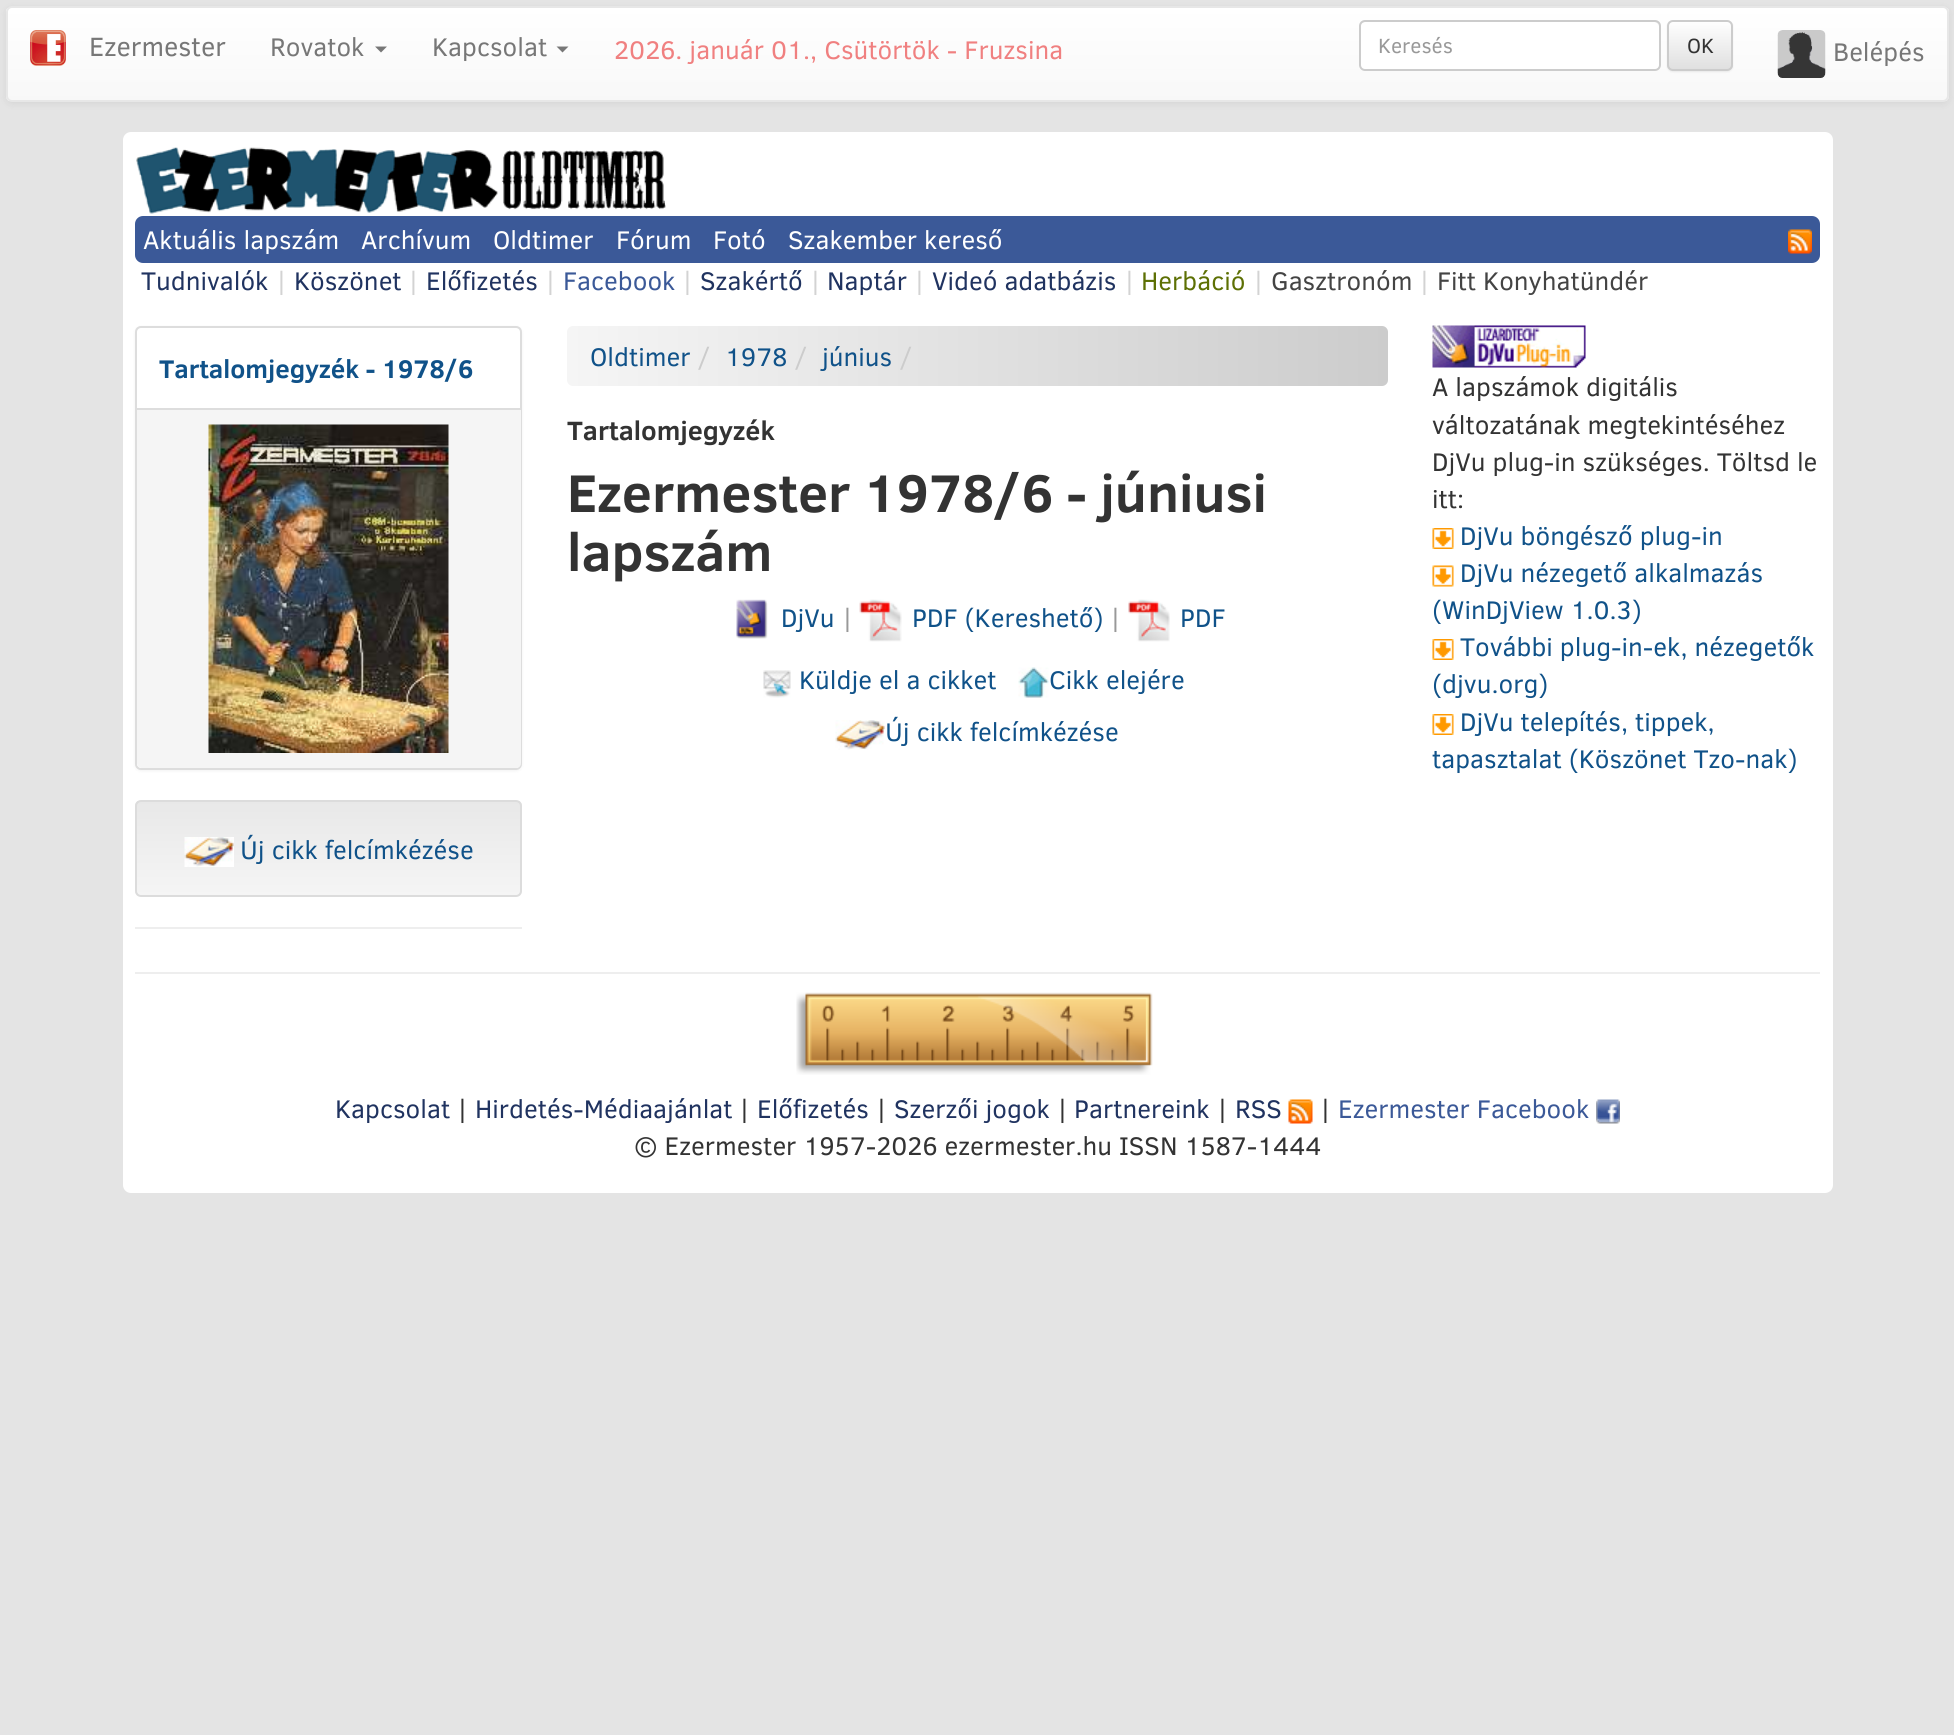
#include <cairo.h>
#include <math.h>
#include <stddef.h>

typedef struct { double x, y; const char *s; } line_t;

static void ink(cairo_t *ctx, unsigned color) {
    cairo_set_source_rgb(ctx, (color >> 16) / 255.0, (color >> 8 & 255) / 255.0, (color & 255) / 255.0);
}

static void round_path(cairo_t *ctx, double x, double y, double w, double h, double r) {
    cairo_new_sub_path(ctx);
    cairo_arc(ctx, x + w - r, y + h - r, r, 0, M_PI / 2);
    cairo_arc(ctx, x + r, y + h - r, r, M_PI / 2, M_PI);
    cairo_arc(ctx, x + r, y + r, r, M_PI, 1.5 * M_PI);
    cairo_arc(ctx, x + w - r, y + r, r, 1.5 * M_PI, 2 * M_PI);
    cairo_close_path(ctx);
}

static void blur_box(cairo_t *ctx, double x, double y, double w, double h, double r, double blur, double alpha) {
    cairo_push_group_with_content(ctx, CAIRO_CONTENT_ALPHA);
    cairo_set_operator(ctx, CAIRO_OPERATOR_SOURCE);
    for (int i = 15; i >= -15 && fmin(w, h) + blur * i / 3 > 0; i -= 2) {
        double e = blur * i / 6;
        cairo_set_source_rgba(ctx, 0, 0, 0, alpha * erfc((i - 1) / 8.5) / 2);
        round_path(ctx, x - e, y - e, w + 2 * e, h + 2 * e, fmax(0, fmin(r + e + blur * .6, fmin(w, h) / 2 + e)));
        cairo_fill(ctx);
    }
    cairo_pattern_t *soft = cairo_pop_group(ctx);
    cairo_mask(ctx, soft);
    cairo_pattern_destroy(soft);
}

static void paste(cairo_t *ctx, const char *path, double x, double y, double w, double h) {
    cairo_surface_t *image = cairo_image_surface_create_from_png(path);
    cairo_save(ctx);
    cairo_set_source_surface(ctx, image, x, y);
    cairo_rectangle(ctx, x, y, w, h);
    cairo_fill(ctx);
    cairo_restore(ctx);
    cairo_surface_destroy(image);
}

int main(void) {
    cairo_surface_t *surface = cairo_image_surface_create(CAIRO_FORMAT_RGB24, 1954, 1735);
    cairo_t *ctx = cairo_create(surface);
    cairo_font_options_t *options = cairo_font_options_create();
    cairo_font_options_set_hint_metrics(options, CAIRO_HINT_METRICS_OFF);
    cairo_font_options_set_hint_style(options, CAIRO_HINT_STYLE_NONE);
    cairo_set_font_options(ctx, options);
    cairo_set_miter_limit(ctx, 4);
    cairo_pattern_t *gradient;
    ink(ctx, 0xE4E4E4);
    cairo_paint(ctx);
    ink(ctx, 0x000000);
    blur_box(ctx, 6, 8, 1943, 96, 6, 4, 0.07);
    cairo_save(ctx);
    round_path(ctx, 6, 6, 1943, 96, 6);
    cairo_clip(ctx);
    gradient = cairo_pattern_create_linear(977, 7.5, 977, 101);
    cairo_pattern_add_color_stop_rgba(gradient, 0, 1, 1, 1, 1);
    cairo_pattern_add_color_stop_rgba(gradient, 1, 0.973, 0.973, 0.973, 1);
    cairo_set_source(ctx, gradient);
    cairo_pattern_destroy(gradient);
    cairo_rectangle(ctx, 6, 8, 1943, 93);
    cairo_fill(ctx);
    cairo_restore(ctx);
    round_path(ctx, 7, 7, 1941, 94, 5);
    ink(ctx, 0xE7E7E7);
    cairo_stroke(ctx);
    paste(ctx, "media/1.png", 30, 30, 36, 36);
    cairo_select_font_face(ctx, "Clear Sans", CAIRO_FONT_SLANT_NORMAL, CAIRO_FONT_WEIGHT_NORMAL);
    cairo_set_font_size(ctx, 27);
    ink(ctx, 0x777777);
    cairo_move_to(ctx, 89, 56);
    cairo_show_text(ctx, "Ezermester");
    cairo_set_font_size(ctx, 26);
    cairo_move_to(ctx, 270, 56);
    cairo_show_text(ctx, "Rovatok");
    cairo_new_path(ctx);
    cairo_move_to(ctx, 375, 46.5);
    cairo_line_to(ctx, 387, 46.5);
    cairo_line_to(ctx, 381, 52.5);
    cairo_close_path(ctx);
    cairo_fill(ctx);
    cairo_move_to(ctx, 432, 56);
    cairo_show_text(ctx, "Kapcsolat");
    cairo_new_path(ctx);
    cairo_move_to(ctx, 556.5, 46.5);
    cairo_line_to(ctx, 568.5, 46.5);
    cairo_line_to(ctx, 562.5, 52.5);
    cairo_close_path(ctx);
    cairo_fill(ctx);
    ink(ctx, 0xF08080);
    cairo_move_to(ctx, 614, 59);
    cairo_show_text(ctx, "2026. január 01., Csütörtök - Fruzsina");
    ink(ctx, 0xFFFFFF);
    round_path(ctx, 1359, 20, 302, 51, 6);
    cairo_fill(ctx);
    ink(ctx, 0xECECEC);
    cairo_new_path(ctx);
    cairo_move_to(ctx, 1365, 22);
    cairo_line_to(ctx, 1654, 22);
    cairo_curve_to(ctx, 1657, 22, 1659, 25, 1659, 27);
    cairo_curve_to(ctx, 1659, 24, 1657, 21, 1654, 21);
    cairo_line_to(ctx, 1365, 21);
    cairo_curve_to(ctx, 1363, 21, 1362, 23, 1361, 24);
    cairo_curve_to(ctx, 1362, 23, 1364, 22, 1365, 22);
    cairo_close_path(ctx);
    cairo_fill(ctx);
    round_path(ctx, 1360, 21, 300, 49, 5);
    ink(ctx, 0xCCCCCC);
    cairo_stroke(ctx);
    cairo_set_font_size(ctx, 21);
    ink(ctx, 0x999999);
    cairo_move_to(ctx, 1378, 53);
    cairo_show_text(ctx, "Keresés");
    ink(ctx, 0x000000);
    blur_box(ctx, 1667, 21, 66, 51, 6, 1, 0.07);
    cairo_save(ctx);
    round_path(ctx, 1667, 20, 66, 51, 6);
    cairo_clip(ctx);
    gradient = cairo_pattern_create_linear(1700, 21, 1700, 69);
    cairo_pattern_add_color_stop_rgba(gradient, 0, 1, 1, 1, 1);
    cairo_pattern_add_color_stop_rgba(gradient, 1, 0.878, 0.878, 0.878, 1);
    cairo_set_source(ctx, gradient);
    cairo_pattern_destroy(gradient);
    cairo_rectangle(ctx, 1667, 21, 66, 48);
    cairo_fill(ctx);
    cairo_restore(ctx);
    round_path(ctx, 1668, 21, 64, 49, 5);
    ink(ctx, 0xCCCCCC);
    cairo_stroke(ctx);
    ink(ctx, 0x333333);
    cairo_move_to(ctx, 1687, 53);
    cairo_show_text(ctx, "OK");
    paste(ctx, "media/2.png", 1777, 30, 49, 48);
    cairo_set_font_size(ctx, 26);
    ink(ctx, 0x777777);
    cairo_move_to(ctx, 1833, 61);
    cairo_show_text(ctx, "Belépés");
    ink(ctx, 0xFFFFFF);
    round_path(ctx, 123, 132, 1710, 1061, 8);
    cairo_fill(ctx);
    paste(ctx, "media/3.png", 136, 147, 530, 67);
    ink(ctx, 0x3B5998);
    round_path(ctx, 135, 216, 1685, 47, 8);
    cairo_fill(ctx);
    ink(ctx, 0xFFFFFF);
    {
        static const line_t items[] = {
            {143, 249, "Aktuális lapszám"},
            {361, 249, "Archívum"},
            {493, 249, "Oldtimer"},
            {616, 249, "Fórum"},
            {713, 249, "Fotó"},
            {788, 249, "Szakember kereső"},
        };
        for (size_t i = 0; i < sizeof items / sizeof *items; i++) {
            cairo_move_to(ctx, items[i].x, items[i].y);
            cairo_show_text(ctx, items[i].s);
        }
    }
    paste(ctx, "media/4.png", 1788, 229, 24, 25);
    ink(ctx, 0x203360);
    cairo_move_to(ctx, 141, 290);
    cairo_show_text(ctx, "Tudnivalók");
    ink(ctx, 0xD3D3D3);
    cairo_move_to(ctx, 276, 290);
    cairo_show_text(ctx, "|");
    ink(ctx, 0x203360);
    cairo_move_to(ctx, 294, 290);
    cairo_show_text(ctx, "Köszönet");
    ink(ctx, 0xD3D3D3);
    cairo_move_to(ctx, 408, 290);
    cairo_show_text(ctx, "|");
    ink(ctx, 0x203360);
    cairo_move_to(ctx, 426, 290);
    cairo_show_text(ctx, "Előfizetés");
    ink(ctx, 0xD3D3D3);
    cairo_move_to(ctx, 545, 290);
    cairo_show_text(ctx, "|");
    ink(ctx, 0x3B5998);
    cairo_move_to(ctx, 563, 290);
    cairo_show_text(ctx, "Facebook");
    ink(ctx, 0xD3D3D3);
    cairo_move_to(ctx, 682, 290);
    cairo_show_text(ctx, "|");
    ink(ctx, 0x203360);
    cairo_move_to(ctx, 700, 290);
    cairo_show_text(ctx, "Szakértő");
    ink(ctx, 0xD3D3D3);
    cairo_move_to(ctx, 810, 290);
    cairo_show_text(ctx, "|");
    ink(ctx, 0x203360);
    cairo_move_to(ctx, 827, 290);
    cairo_show_text(ctx, "Naptár");
    ink(ctx, 0xD3D3D3);
    cairo_move_to(ctx, 914, 290);
    cairo_show_text(ctx, "|");
    ink(ctx, 0x203360);
    cairo_move_to(ctx, 932, 290);
    cairo_show_text(ctx, "Videó adatbázis");
    ink(ctx, 0xD3D3D3);
    cairo_move_to(ctx, 1124, 290);
    cairo_show_text(ctx, "|");
    ink(ctx, 0x5D7004);
    cairo_move_to(ctx, 1141, 290);
    cairo_show_text(ctx, "Herbáció");
    ink(ctx, 0xD3D3D3);
    cairo_move_to(ctx, 1253, 290);
    cairo_show_text(ctx, "|");
    ink(ctx, 0x444444);
    cairo_move_to(ctx, 1271, 290);
    cairo_show_text(ctx, "Gasztronóm");
    ink(ctx, 0xD3D3D3);
    cairo_move_to(ctx, 1419, 290);
    cairo_show_text(ctx, "|");
    ink(ctx, 0x444444);
    cairo_move_to(ctx, 1437, 290);
    cairo_show_text(ctx, "Fitt Konyhatündér");
    ink(ctx, 0x000000);
    blur_box(ctx, 135, 327, 387, 444, 6, 1.5, 0.05);
    ink(ctx, 0xFFFFFF);
    round_path(ctx, 136, 327, 385, 442, 5);
    cairo_fill_preserve(ctx);
    ink(ctx, 0xDDDDDD);
    cairo_stroke(ctx);
    cairo_select_font_face(ctx, "Clear Sans", CAIRO_FONT_SLANT_NORMAL, CAIRO_FONT_WEIGHT_BOLD);
    ink(ctx, 0x105289);
    cairo_move_to(ctx, 159, 378);
    cairo_show_text(ctx, "Tartalomjegyzék - 1978/6");
    ink(ctx, 0xF5F5F5);
    cairo_new_path(ctx);
    cairo_move_to(ctx, 137, 408);
    cairo_line_to(ctx, 521, 408);
    cairo_line_to(ctx, 521, 763);
    cairo_curve_to(ctx, 521, 766, 519, 768, 516, 768);
    cairo_line_to(ctx, 142, 768);
    cairo_curve_to(ctx, 139, 768, 137, 766, 137, 763);
    cairo_close_path(ctx);
    cairo_fill(ctx);
    ink(ctx, 0xDDDDDD);
    cairo_rectangle(ctx, 137, 408, 384, 2);
    cairo_fill(ctx);
    paste(ctx, "media/5.png", 208, 424, 241, 329);
    cairo_save(ctx);
    round_path(ctx, 135, 800, 387, 97, 6);
    cairo_clip(ctx);
    gradient = cairo_pattern_create_linear(329, 801, 329, 896);
    cairo_pattern_add_color_stop_rgba(gradient, 0, 0.91, 0.91, 0.91, 1);
    cairo_pattern_add_color_stop_rgba(gradient, 1, 0.961, 0.961, 0.961, 1);
    cairo_set_source(ctx, gradient);
    cairo_pattern_destroy(gradient);
    cairo_rectangle(ctx, 135, 801, 387, 95);
    cairo_fill(ctx);
    cairo_restore(ctx);
    round_path(ctx, 136, 801, 385, 95, 5);
    ink(ctx, 0xDCDCDC);
    cairo_stroke(ctx);
    paste(ctx, "media/6.png", 184, 837, 50, 30);
    cairo_select_font_face(ctx, "Clear Sans", CAIRO_FONT_SLANT_NORMAL, CAIRO_FONT_WEIGHT_NORMAL);
    ink(ctx, 0x105289);
    cairo_move_to(ctx, 240, 859);
    cairo_show_text(ctx, "Új cikk felcímkézése");
    ink(ctx, 0xEEEEEE);
    cairo_rectangle(ctx, 135, 927, 387, 2);
    cairo_fill(ctx);
    gradient = cairo_pattern_create_linear(567, 356, 1388, 355);
    cairo_pattern_add_color_stop_rgba(gradient, 0, 0.961, 0.961, 0.961, 1);
    cairo_pattern_add_color_stop_rgba(gradient, 1, 0.8, 0.8, 0.8, 1);
    cairo_set_source(ctx, gradient);
    cairo_pattern_destroy(gradient);
    round_path(ctx, 567, 326, 821, 60, 6);
    cairo_fill(ctx);
    ink(ctx, 0x105289);
    cairo_move_to(ctx, 590, 366);
    cairo_show_text(ctx, "Oldtimer");
    ink(ctx, 0xCCCCCC);
    cairo_move_to(ctx, 698, 366);
    cairo_show_text(ctx, "/");
    ink(ctx, 0x105289);
    cairo_move_to(ctx, 725, 366);
    cairo_show_text(ctx, "1978");
    ink(ctx, 0xCCCCCC);
    cairo_move_to(ctx, 795, 366);
    cairo_show_text(ctx, "/");
    ink(ctx, 0x105289);
    cairo_move_to(ctx, 822, 366);
    cairo_show_text(ctx, "június");
    ink(ctx, 0xCCCCCC);
    cairo_move_to(ctx, 900, 366);
    cairo_show_text(ctx, "/");
    cairo_select_font_face(ctx, "Clear Sans", CAIRO_FONT_SLANT_NORMAL, CAIRO_FONT_WEIGHT_BOLD);
    cairo_set_font_size(ctx, 27);
    ink(ctx, 0x333333);
    cairo_move_to(ctx, 567, 440);
    cairo_show_text(ctx, "Tartalomjegyzék");
    cairo_set_font_size(ctx, 54);
    cairo_move_to(ctx, 567, 512);
    cairo_show_text(ctx, "Ezermester 1978/6 - júniusi");
    cairo_move_to(ctx, 567, 571);
    cairo_show_text(ctx, "lapszám");
    paste(ctx, "media/7.png", 736, 599, 32, 40);
    cairo_select_font_face(ctx, "Clear Sans", CAIRO_FONT_SLANT_NORMAL, CAIRO_FONT_WEIGHT_NORMAL);
    cairo_set_font_size(ctx, 26);
    ink(ctx, 0x105289);
    cairo_move_to(ctx, 781, 627);
    cairo_show_text(ctx, "DjVu");
    ink(ctx, 0x999999);
    cairo_move_to(ctx, 842, 627);
    cairo_show_text(ctx, "|");
    paste(ctx, "media/8.png", 859, 599, 43, 43);
    ink(ctx, 0x105289);
    cairo_move_to(ctx, 912, 627);
    cairo_show_text(ctx, "PDF (Kereshető)");
    ink(ctx, 0x999999);
    cairo_move_to(ctx, 1110, 627);
    cairo_show_text(ctx, "|");
    paste(ctx, "media/9.png", 1128, 599, 42, 43);
    ink(ctx, 0x105289);
    cairo_move_to(ctx, 1180, 627);
    cairo_show_text(ctx, "PDF");
    paste(ctx, "media/10.png", 763, 670, 28, 28);
    cairo_move_to(ctx, 799, 689);
    cairo_show_text(ctx, "Küldje el a cikket");
    paste(ctx, "media/11.png", 1018, 667, 31, 31);
    cairo_move_to(ctx, 1049, 689);
    cairo_show_text(ctx, "Cikk elejére");
    paste(ctx, "media/12.png", 835, 720, 50, 30);
    cairo_move_to(ctx, 885, 741);
    cairo_show_text(ctx, "Új cikk felcímkézése");
    paste(ctx, "media/13.png", 1432, 325, 154, 43);
    ink(ctx, 0x333333);
    {
        static const line_t items[] = {
            {1432, 396, "A lapszámok digitális"},
            {1432, 434, "változatának megtekintéséhez"},
            {1432, 471, "DjVu plug-in szükséges. Töltsd le"},
            {1432, 508, "itt:"},
        };
        for (size_t i = 0; i < sizeof items / sizeof *items; i++) {
            cairo_move_to(ctx, items[i].x, items[i].y);
            cairo_show_text(ctx, items[i].s);
        }
    }
    paste(ctx, "media/14.png", 1432, 528, 22, 21);
    ink(ctx, 0x105289);
    cairo_move_to(ctx, 1460, 545);
    cairo_show_text(ctx, "DjVu böngésző plug-in");
    paste(ctx, "media/15.png", 1432, 565, 22, 22);
    cairo_move_to(ctx, 1460, 582);
    cairo_show_text(ctx, "DjVu nézegető alkalmazás");
    cairo_move_to(ctx, 1432, 619);
    cairo_show_text(ctx, "(WinDjView 1.0.3)");
    paste(ctx, "media/14.png", 1432, 639, 22, 21);
    cairo_move_to(ctx, 1460, 656);
    cairo_show_text(ctx, "További plug-in-ek, nézegetők");
    cairo_move_to(ctx, 1432, 693);
    cairo_show_text(ctx, "(djvu.org)");
    paste(ctx, "media/14.png", 1432, 714, 22, 21);
    cairo_move_to(ctx, 1460, 731);
    cairo_show_text(ctx, "DjVu telepítés, tippek,");
    cairo_move_to(ctx, 1432, 768);
    cairo_show_text(ctx, "tapasztalat (Köszönet Tzo-nak)");
    ink(ctx, 0xEEEEEE);
    cairo_rectangle(ctx, 135, 972, 1685, 2);
    cairo_fill(ctx);
    paste(ctx, "media/16.png", 796, 992, 357, 83);
    ink(ctx, 0x203360);
    cairo_move_to(ctx, 335, 1118);
    cairo_show_text(ctx, "Kapcsolat");
    ink(ctx, 0x333333);
    cairo_move_to(ctx, 457, 1118);
    cairo_show_text(ctx, "|");
    ink(ctx, 0x203360);
    cairo_move_to(ctx, 475, 1118);
    cairo_show_text(ctx, "Hirdetés-Médiaajánlat");
    ink(ctx, 0x333333);
    cairo_move_to(ctx, 739, 1118);
    cairo_show_text(ctx, "|");
    ink(ctx, 0x203360);
    cairo_move_to(ctx, 757, 1118);
    cairo_show_text(ctx, "Előfizetés");
    ink(ctx, 0x333333);
    cairo_move_to(ctx, 876, 1118);
    cairo_show_text(ctx, "|");
    ink(ctx, 0x203360);
    cairo_move_to(ctx, 894, 1118);
    cairo_show_text(ctx, "Szerzői jogok");
    ink(ctx, 0x333333);
    cairo_move_to(ctx, 1057, 1118);
    cairo_show_text(ctx, "|");
    ink(ctx, 0x203360);
    cairo_move_to(ctx, 1074, 1118);
    cairo_show_text(ctx, "Partnereink");
    ink(ctx, 0x333333);
    cairo_move_to(ctx, 1217, 1118);
    cairo_show_text(ctx, "|");
    ink(ctx, 0x203360);
    cairo_move_to(ctx, 1235, 1118);
    cairo_show_text(ctx, "RSS");
    paste(ctx, "media/17.png", 1288, 1099, 25, 25);
    ink(ctx, 0x333333);
    cairo_move_to(ctx, 1320, 1118);
    cairo_show_text(ctx, "|");
    ink(ctx, 0x3B5998);
    cairo_move_to(ctx, 1338, 1118);
    cairo_show_text(ctx, "Ezermester Facebook");
    paste(ctx, "media/18.png", 1596, 1099, 24, 25);
    ink(ctx, 0x333333);
    cairo_move_to(ctx, 634, 1155);
    cairo_show_text(ctx, "© Ezermester 1957-2026 ezermester.hu ISSN 1587-1444");
    cairo_surface_write_to_png(surface, "image.png");
    cairo_font_options_destroy(options);
    cairo_destroy(ctx);
    cairo_surface_destroy(surface);
    return 0;
}
